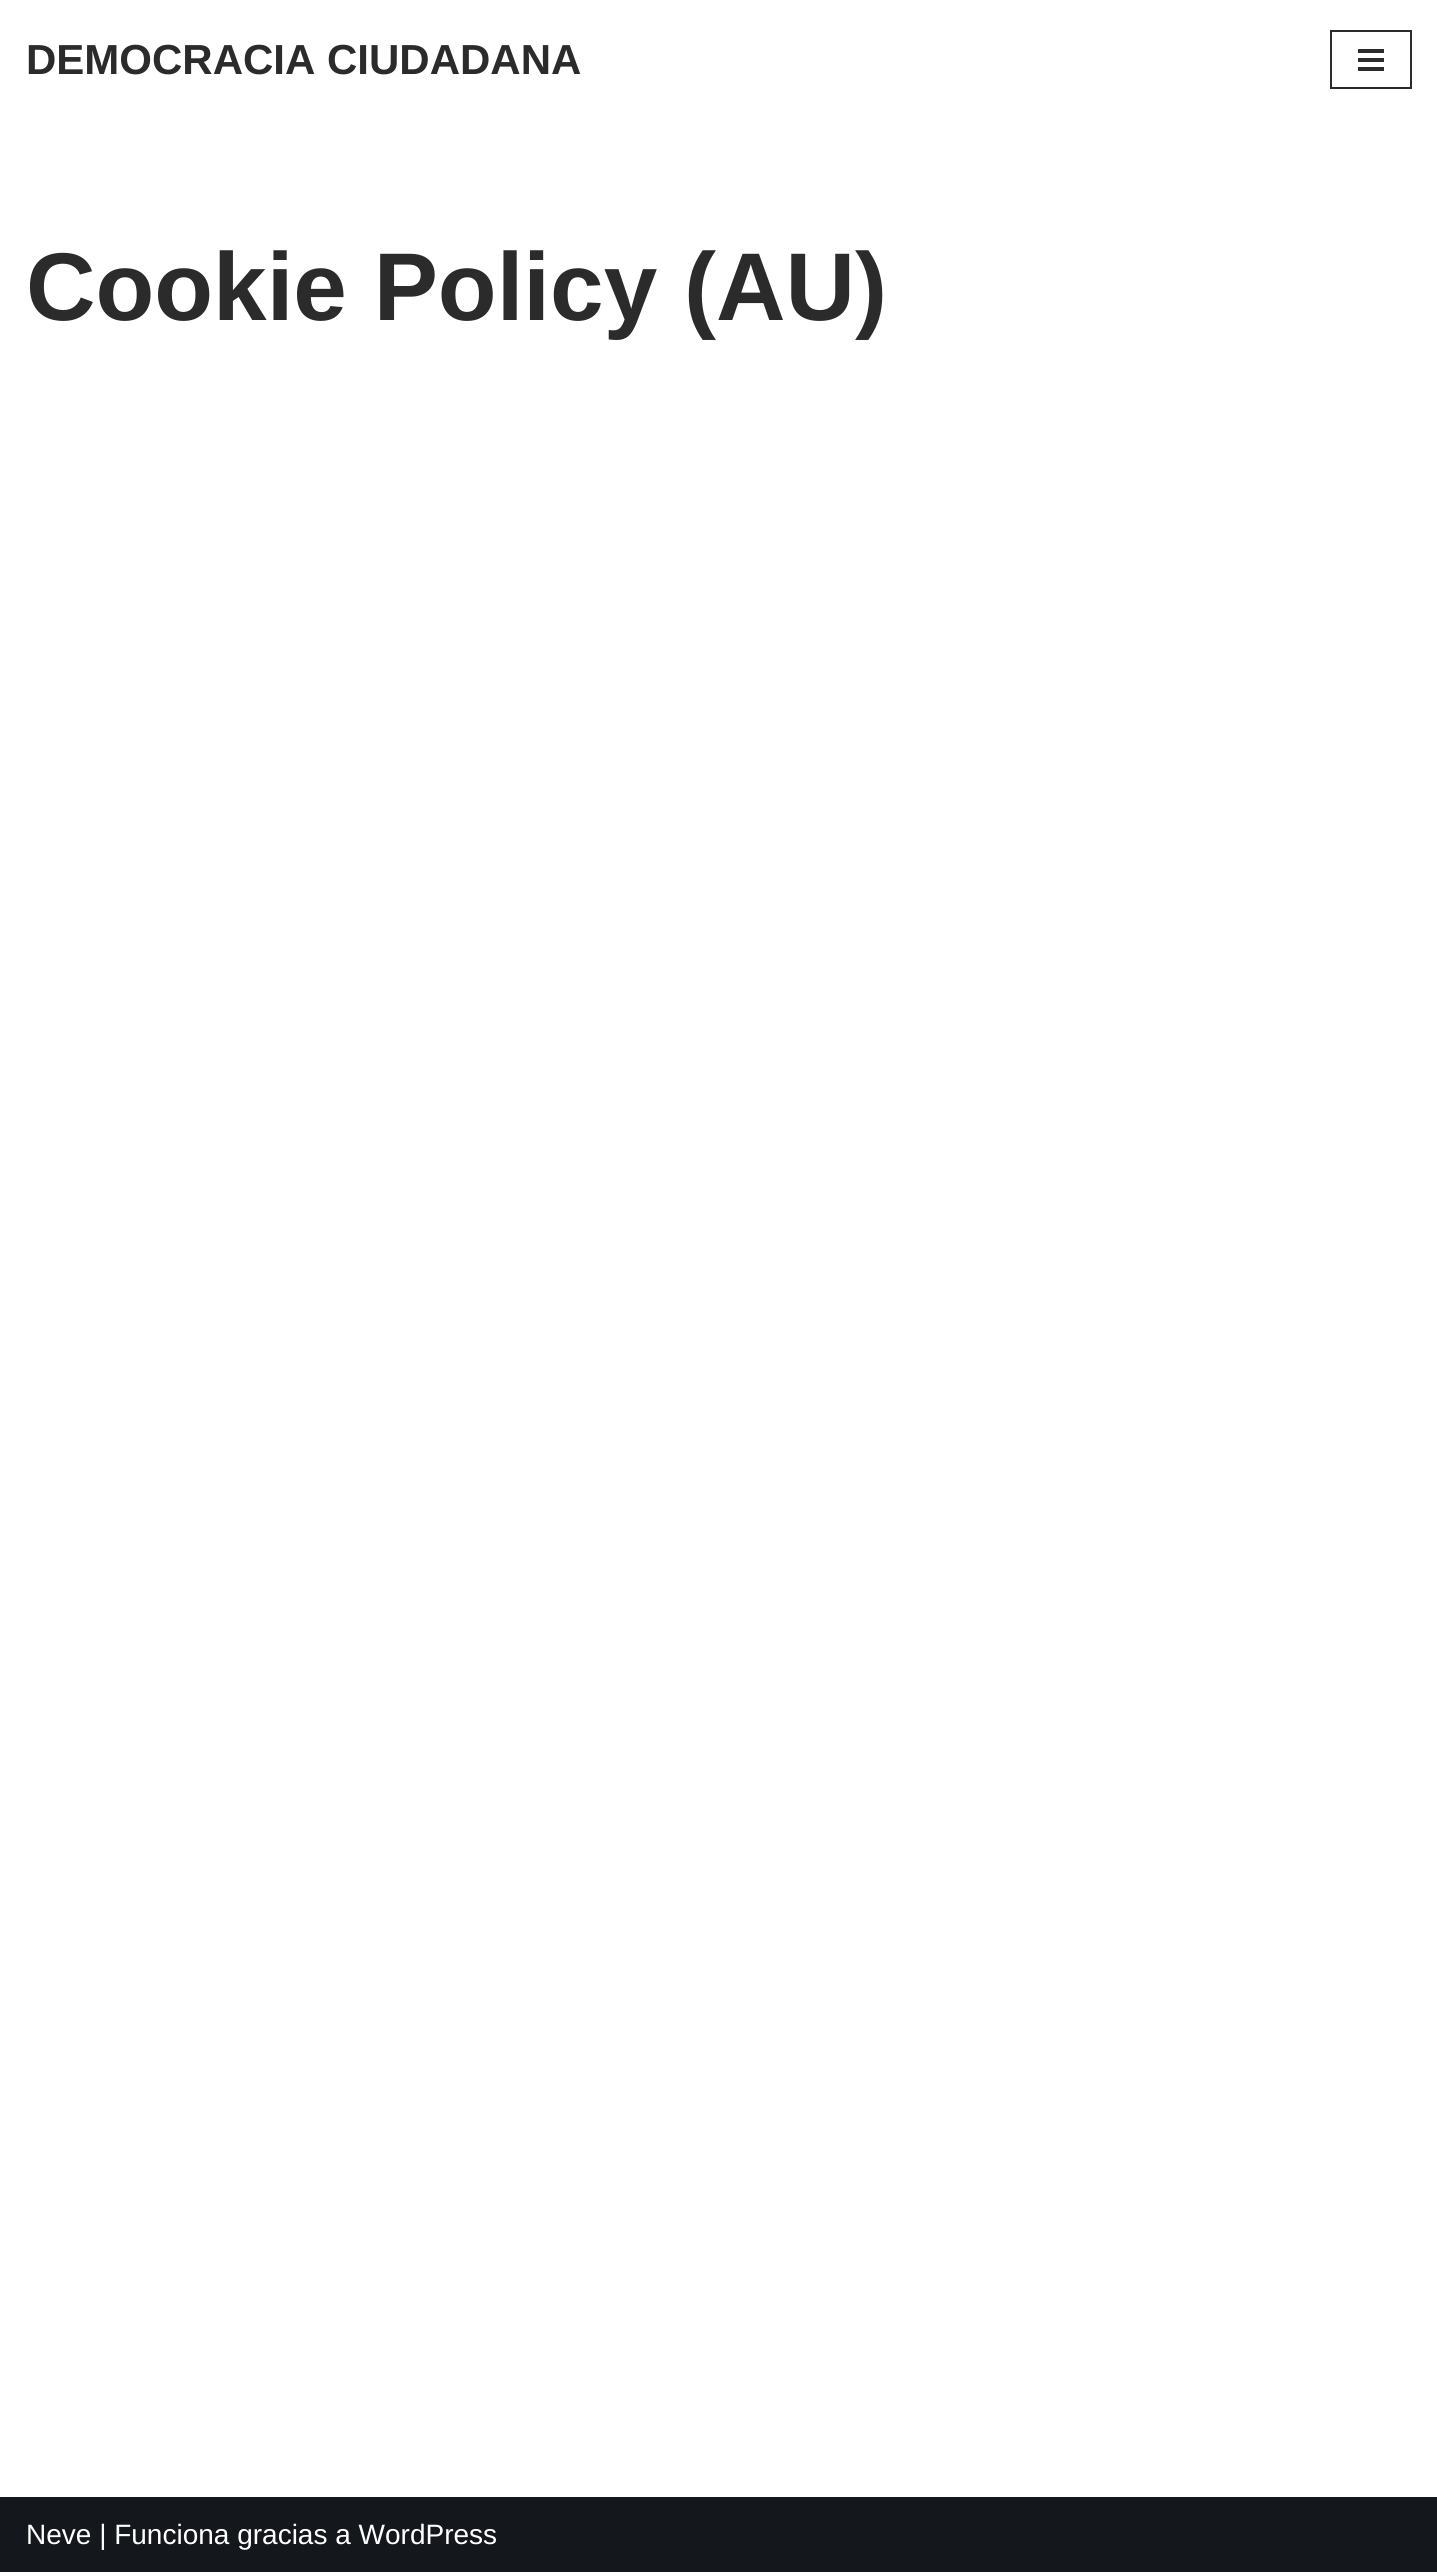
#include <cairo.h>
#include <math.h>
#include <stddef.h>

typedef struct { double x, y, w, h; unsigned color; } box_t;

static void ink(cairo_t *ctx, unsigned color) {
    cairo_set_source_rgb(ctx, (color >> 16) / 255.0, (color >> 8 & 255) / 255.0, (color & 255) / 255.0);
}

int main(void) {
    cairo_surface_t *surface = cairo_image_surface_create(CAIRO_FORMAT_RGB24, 1437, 2572);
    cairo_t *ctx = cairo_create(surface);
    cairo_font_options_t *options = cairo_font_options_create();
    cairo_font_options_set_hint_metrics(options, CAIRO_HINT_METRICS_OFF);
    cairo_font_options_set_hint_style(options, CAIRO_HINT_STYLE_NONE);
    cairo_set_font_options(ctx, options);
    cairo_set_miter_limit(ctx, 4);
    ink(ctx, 0xFFFFFF);
    cairo_paint(ctx);
    cairo_select_font_face(ctx, "Liberation Sans", CAIRO_FONT_SLANT_NORMAL, CAIRO_FONT_WEIGHT_BOLD);
    cairo_set_font_size(ctx, 42);
    ink(ctx, 0x2B2B2B);
    cairo_move_to(ctx, 26, 74);
    cairo_show_text(ctx, "DEMOCRACIA CIUDADANA");
    cairo_rectangle(ctx, 1331, 31, 80, 57);
    cairo_stroke(ctx);
    {
        static const box_t items[] = {
            {1358, 49, 26, 4, 0x2B2B2B},
            {1358, 58, 26, 4, 0x2B2B2B},
            {1358, 67, 26, 4, 0x2B2B2B},
        };
        for (size_t i = 0; i < sizeof items / sizeof *items; i++) {
            ink(ctx, items[i].color);
            cairo_rectangle(ctx, items[i].x, items[i].y, items[i].w, items[i].h);
            cairo_fill(ctx);
        }
    }
    cairo_set_font_size(ctx, 96.25);
    cairo_move_to(ctx, 26, 320);
    cairo_show_text(ctx, "Cookie Policy (AU)");
    ink(ctx, 0x14171C);
    cairo_rectangle(ctx, 0, 2497, 1437, 75);
    cairo_fill(ctx);
    cairo_select_font_face(ctx, "Liberation Sans", CAIRO_FONT_SLANT_NORMAL, CAIRO_FONT_WEIGHT_NORMAL);
    cairo_set_font_size(ctx, 28);
    ink(ctx, 0xFFFFFF);
    cairo_move_to(ctx, 26, 2544);
    cairo_show_text(ctx, "Neve | Funciona gracias a WordPress");
    cairo_surface_write_to_png(surface, "image.png");
    cairo_font_options_destroy(options);
    cairo_destroy(ctx);
    cairo_surface_destroy(surface);
    return 0;
}
